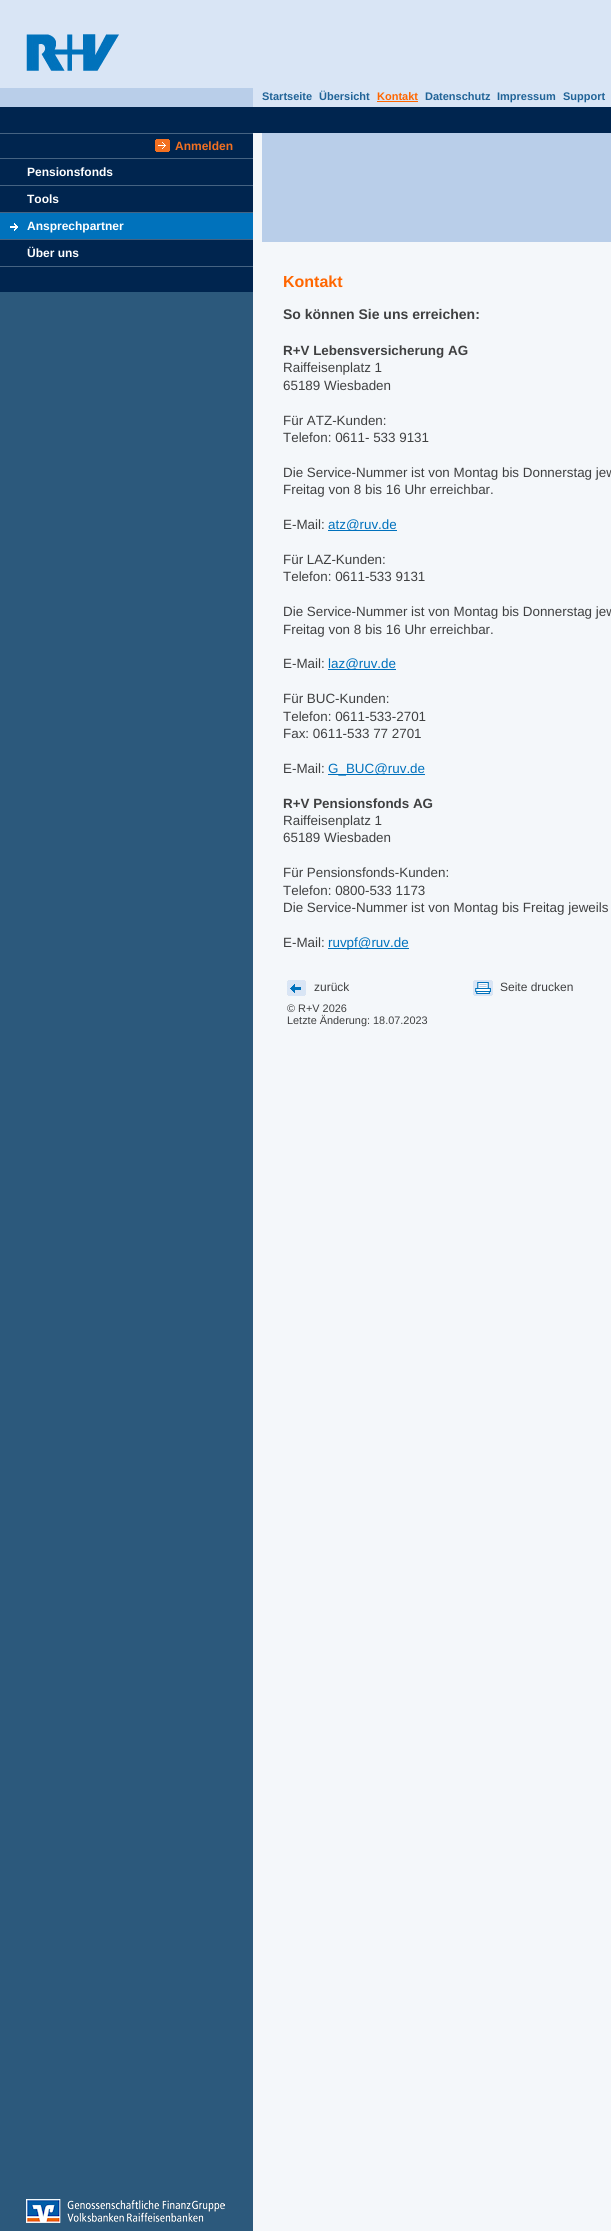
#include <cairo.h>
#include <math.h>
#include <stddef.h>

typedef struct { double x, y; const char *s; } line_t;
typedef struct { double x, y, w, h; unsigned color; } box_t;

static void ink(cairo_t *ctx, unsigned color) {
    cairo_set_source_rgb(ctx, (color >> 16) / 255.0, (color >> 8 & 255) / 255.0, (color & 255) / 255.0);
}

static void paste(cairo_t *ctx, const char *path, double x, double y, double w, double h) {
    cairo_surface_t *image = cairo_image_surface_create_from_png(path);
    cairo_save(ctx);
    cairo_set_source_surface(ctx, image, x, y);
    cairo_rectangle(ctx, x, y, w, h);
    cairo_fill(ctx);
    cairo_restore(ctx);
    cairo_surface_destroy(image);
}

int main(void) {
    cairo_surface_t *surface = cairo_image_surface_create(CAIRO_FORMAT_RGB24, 611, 2231);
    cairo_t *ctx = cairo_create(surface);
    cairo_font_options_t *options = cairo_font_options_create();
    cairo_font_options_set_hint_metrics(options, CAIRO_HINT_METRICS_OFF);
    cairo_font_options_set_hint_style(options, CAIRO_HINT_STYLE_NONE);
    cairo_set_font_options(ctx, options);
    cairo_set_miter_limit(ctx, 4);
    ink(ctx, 0xF4F7FA);
    cairo_paint(ctx);
    {
        static const box_t items[] = {
            {0, 292, 253, 1939, 0x2C597C},
            {0, 0, 611, 107, 0xD9E5F5},
            {0, 107, 611, 26, 0x00254F},
        };
        for (size_t i = 0; i < sizeof items / sizeof *items; i++) {
            ink(ctx, items[i].color);
            cairo_rectangle(ctx, items[i].x, items[i].y, items[i].w, items[i].h);
            cairo_fill(ctx);
        }
    }
    paste(ctx, "media/1.png", 26, 34, 93, 37);
    ink(ctx, 0xB9CEE9);
    cairo_rectangle(ctx, 0, 88, 253, 19);
    cairo_fill(ctx);
    cairo_select_font_face(ctx, "Liberation Sans", CAIRO_FONT_SLANT_NORMAL, CAIRO_FONT_WEIGHT_BOLD);
    cairo_set_font_size(ctx, 11);
    ink(ctx, 0x206397);
    cairo_move_to(ctx, 262, 100);
    cairo_show_text(ctx, "Startseite");
    cairo_move_to(ctx, 319, 100);
    cairo_show_text(ctx, "Übersicht");
    ink(ctx, 0xFF6600);
    cairo_move_to(ctx, 377, 100);
    cairo_show_text(ctx, "Kontakt");
    cairo_rectangle(ctx, 377, 101, 41, 1);
    cairo_fill(ctx);
    ink(ctx, 0x206397);
    {
        static const line_t items[] = {
            {425, 100, "Datenschutz"},
            {497, 100, "Impressum"},
            {563, 100, "Support"},
        };
        for (size_t i = 0; i < sizeof items / sizeof *items; i++) {
            cairo_move_to(ctx, items[i].x, items[i].y);
            cairo_show_text(ctx, items[i].s);
        }
    }
    ink(ctx, 0x00254F);
    cairo_rectangle(ctx, 0, 134, 253, 158);
    cairo_fill(ctx);
    ink(ctx, 0x456382);
    cairo_rectangle(ctx, 0, 133, 253, 1);
    cairo_fill(ctx);
    paste(ctx, "media/2.png", 155, 139, 15, 13);
    cairo_set_font_size(ctx, 12);
    ink(ctx, 0xF37021);
    cairo_move_to(ctx, 175, 150);
    cairo_show_text(ctx, "Anmelden");
    ink(ctx, 0x456382);
    cairo_rectangle(ctx, 0, 266, 253, 1);
    cairo_fill(ctx);
    cairo_rectangle(ctx, 0, 158, 253, 1);
    cairo_fill(ctx);
    ink(ctx, 0xFFFFFF);
    cairo_move_to(ctx, 27, 176);
    cairo_show_text(ctx, "Pensionsfonds");
    ink(ctx, 0x456382);
    cairo_rectangle(ctx, 0, 185, 253, 1);
    cairo_fill(ctx);
    ink(ctx, 0xFFFFFF);
    cairo_move_to(ctx, 27, 203);
    cairo_show_text(ctx, "Tools");
    ink(ctx, 0x0072BC);
    cairo_rectangle(ctx, 0, 213, 253, 26);
    cairo_fill(ctx);
    paste(ctx, "media/3.png", 10, 223, 8, 8);
    ink(ctx, 0x456382);
    cairo_rectangle(ctx, 0, 212, 253, 1);
    cairo_fill(ctx);
    ink(ctx, 0xFFFFFF);
    cairo_move_to(ctx, 27, 230);
    cairo_show_text(ctx, "Ansprechpartner");
    ink(ctx, 0x456382);
    cairo_rectangle(ctx, 0, 239, 253, 1);
    cairo_fill(ctx);
    ink(ctx, 0xFFFFFF);
    cairo_move_to(ctx, 27, 257);
    cairo_show_text(ctx, "Über uns");
    ink(ctx, 0xB9CEE9);
    cairo_rectangle(ctx, 262, 133, 349, 109);
    cairo_fill(ctx);
    cairo_set_font_size(ctx, 16);
    ink(ctx, 0xFF6600);
    cairo_move_to(ctx, 283, 287);
    cairo_show_text(ctx, "Kontakt");
    cairo_set_font_size(ctx, 14);
    ink(ctx, 0x3F4041);
    cairo_move_to(ctx, 283, 319);
    cairo_show_text(ctx, "So können Sie uns erreichen:");
    cairo_set_font_size(ctx, 13.4);
    cairo_move_to(ctx, 283, 355);
    cairo_show_text(ctx, "R+V Lebensversicherung AG");
    cairo_select_font_face(ctx, "Liberation Sans", CAIRO_FONT_SLANT_NORMAL, CAIRO_FONT_WEIGHT_NORMAL);
    {
        static const line_t items[] = {
            {283, 372, "Raiffeisenplatz 1"},
            {283, 390, "65189 Wiesbaden"},
            {283, 425, "Für ATZ-Kunden:"},
            {283, 442, "Telefon: 0611- 533 9131"},
            {283, 477, "Die Service-Nummer ist von Montag bis Donnerstag jew"},
            {283, 494, "Freitag von 8 bis 16 Uhr erreichbar."},
            {283, 529, "E-Mail:"},
        };
        for (size_t i = 0; i < sizeof items / sizeof *items; i++) {
            cairo_move_to(ctx, items[i].x, items[i].y);
            cairo_show_text(ctx, items[i].s);
        }
    }
    ink(ctx, 0x0071BD);
    cairo_rectangle(ctx, 328, 530, 69, 1);
    cairo_fill(ctx);
    cairo_move_to(ctx, 328, 529);
    cairo_show_text(ctx, "atz@ruv.de");
    ink(ctx, 0x3F4041);
    {
        static const line_t items[] = {
            {283, 564, "Für LAZ-Kunden:"},
            {283, 581, "Telefon: 0611-533 9131"},
            {283, 616, "Die Service-Nummer ist von Montag bis Donnerstag jew"},
            {283, 634, "Freitag von 8 bis 16 Uhr erreichbar."},
            {283, 668, "E-Mail:"},
        };
        for (size_t i = 0; i < sizeof items / sizeof *items; i++) {
            cairo_move_to(ctx, items[i].x, items[i].y);
            cairo_show_text(ctx, items[i].s);
        }
    }
    ink(ctx, 0x0071BD);
    cairo_rectangle(ctx, 328, 669, 68, 1);
    cairo_fill(ctx);
    cairo_move_to(ctx, 328, 668);
    cairo_show_text(ctx, "laz@ruv.de");
    ink(ctx, 0x3F4041);
    {
        static const line_t items[] = {
            {283, 703, "Für BUC-Kunden:"},
            {283, 721, "Telefon: 0611-533-2701"},
            {283, 738, "Fax: 0611-533 77 2701"},
            {283, 773, "E-Mail:"},
        };
        for (size_t i = 0; i < sizeof items / sizeof *items; i++) {
            cairo_move_to(ctx, items[i].x, items[i].y);
            cairo_show_text(ctx, items[i].s);
        }
    }
    ink(ctx, 0x0071BD);
    cairo_rectangle(ctx, 328, 774, 97, 1);
    cairo_fill(ctx);
    cairo_move_to(ctx, 328, 773);
    cairo_show_text(ctx, "G_BUC@ruv.de");
    cairo_select_font_face(ctx, "Liberation Sans", CAIRO_FONT_SLANT_NORMAL, CAIRO_FONT_WEIGHT_BOLD);
    ink(ctx, 0x3F4041);
    cairo_move_to(ctx, 283, 808);
    cairo_show_text(ctx, "R+V Pensionsfonds AG");
    cairo_select_font_face(ctx, "Liberation Sans", CAIRO_FONT_SLANT_NORMAL, CAIRO_FONT_WEIGHT_NORMAL);
    {
        static const line_t items[] = {
            {283, 825, "Raiffeisenplatz 1"},
            {283, 842, "65189 Wiesbaden"},
            {283, 877, "Für Pensionsfonds-Kunden:"},
            {283, 895, "Telefon: 0800-533 1173"},
            {283, 912, "Die Service-Nummer ist von Montag bis Freitag jeweils"},
            {283, 947, "E-Mail:"},
        };
        for (size_t i = 0; i < sizeof items / sizeof *items; i++) {
            cairo_move_to(ctx, items[i].x, items[i].y);
            cairo_show_text(ctx, items[i].s);
        }
    }
    ink(ctx, 0x0071BD);
    cairo_rectangle(ctx, 328, 948, 81, 1);
    cairo_fill(ctx);
    cairo_move_to(ctx, 328, 947);
    cairo_show_text(ctx, "ruvpf@ruv.de");
    paste(ctx, "media/4.png", 287, 980, 19, 16);
    cairo_set_font_size(ctx, 12);
    ink(ctx, 0x3F4041);
    cairo_move_to(ctx, 314, 991);
    cairo_show_text(ctx, "zurück");
    paste(ctx, "media/5.png", 473, 980, 20, 16);
    cairo_move_to(ctx, 500, 991);
    cairo_show_text(ctx, "Seite drucken");
    cairo_set_font_size(ctx, 10.9);
    cairo_move_to(ctx, 287, 1012);
    cairo_show_text(ctx, "© R+V 2026");
    cairo_move_to(ctx, 287, 1024);
    cairo_show_text(ctx, "Letzte Änderung: 18.07.2023");
    paste(ctx, "media/6.png", 26, 2199, 199, 24);
    cairo_surface_write_to_png(surface, "image.png");
    cairo_font_options_destroy(options);
    cairo_destroy(ctx);
    cairo_surface_destroy(surface);
    return 0;
}
